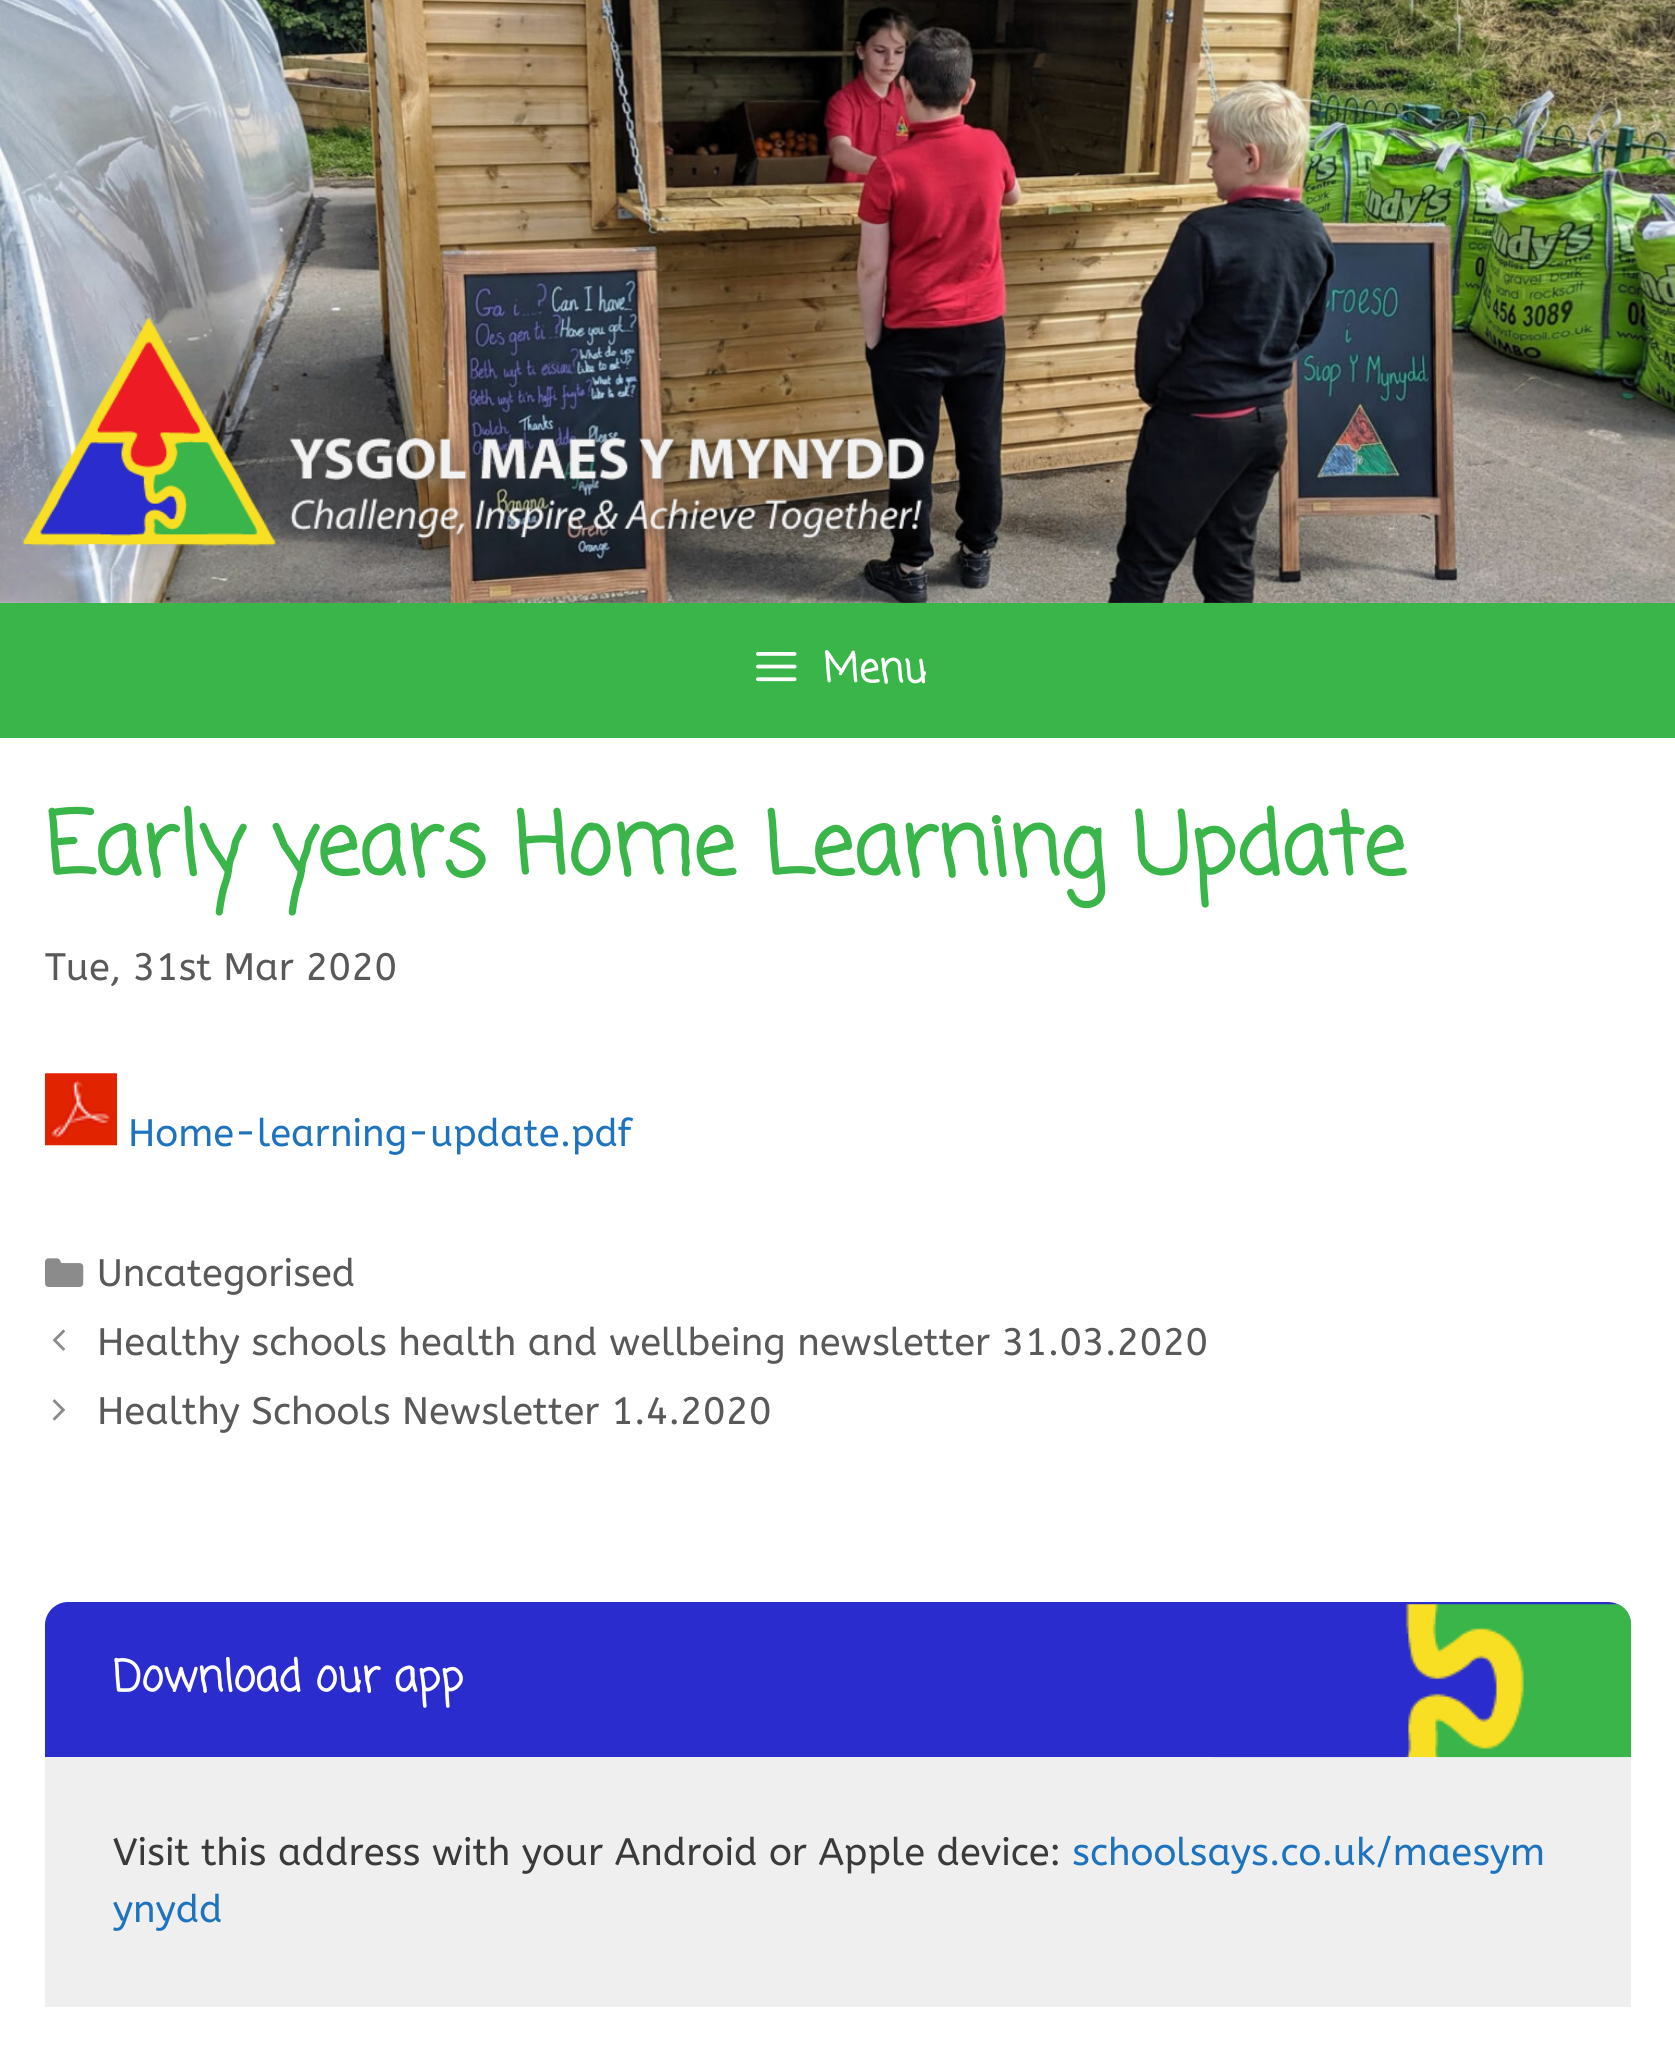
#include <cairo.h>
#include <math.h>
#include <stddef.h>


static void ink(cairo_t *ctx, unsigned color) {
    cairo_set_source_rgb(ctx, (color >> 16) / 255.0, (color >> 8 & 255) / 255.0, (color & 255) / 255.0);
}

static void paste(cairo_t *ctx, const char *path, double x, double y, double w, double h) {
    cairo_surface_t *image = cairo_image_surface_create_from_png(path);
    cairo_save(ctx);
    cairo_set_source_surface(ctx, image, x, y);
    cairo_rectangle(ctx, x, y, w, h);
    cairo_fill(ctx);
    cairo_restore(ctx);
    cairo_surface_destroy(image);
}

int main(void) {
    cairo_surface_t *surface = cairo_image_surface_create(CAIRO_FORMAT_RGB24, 1675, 2048);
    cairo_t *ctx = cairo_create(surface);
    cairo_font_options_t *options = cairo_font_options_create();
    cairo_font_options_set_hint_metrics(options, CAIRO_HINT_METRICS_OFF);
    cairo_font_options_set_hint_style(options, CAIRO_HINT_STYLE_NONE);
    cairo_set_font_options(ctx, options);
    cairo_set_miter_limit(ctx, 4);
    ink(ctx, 0xFFFFFF);
    cairo_paint(ctx);
    paste(ctx, "media/1.png", 0, 0, 1675, 603);
    paste(ctx, "media/2.png", 22, 317, 914, 231);
    ink(ctx, 0x39B54A);
    cairo_rectangle(ctx, 0, 603, 1675, 135);
    cairo_fill(ctx);
    paste(ctx, "media/3.png", 756, 652, 41, 30);
    cairo_select_font_face(ctx, "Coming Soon", CAIRO_FONT_SLANT_NORMAL, CAIRO_FONT_WEIGHT_BOLD);
    cairo_set_font_size(ctx, 40.5);
    ink(ctx, 0xFFFFFF);
    cairo_move_to(ctx, 823, 682);
    cairo_show_text(ctx, "Menu");
    cairo_set_font_size(ctx, 85.5);
    ink(ctx, 0x39B54A);
    cairo_move_to(ctx, 45, 874);
    cairo_show_text(ctx, "Early years Home Learning Update");
    cairo_select_font_face(ctx, "ABeeZee", CAIRO_FONT_SLANT_NORMAL, CAIRO_FONT_WEIGHT_NORMAL);
    cairo_set_font_size(ctx, 38.25);
    ink(ctx, 0x595959);
    cairo_move_to(ctx, 45, 980);
    cairo_show_text(ctx, "Tue, 31st Mar 2020");
    paste(ctx, "media/4.png", 45, 1073, 72, 73);
    ink(ctx, 0x1E73BE);
    cairo_move_to(ctx, 128, 1146);
    cairo_show_text(ctx, "Home-learning-update.pdf");
    paste(ctx, "media/5.png", 45, 1258, 39, 29);
    ink(ctx, 0x595959);
    cairo_move_to(ctx, 97, 1286);
    cairo_show_text(ctx, "Uncategorised");
    paste(ctx, "media/6.png", 52, 1329, 13, 22);
    cairo_move_to(ctx, 97, 1355);
    cairo_show_text(ctx, "Healthy schools health and wellbeing newsletter 31.03.2020");
    paste(ctx, "media/7.png", 52, 1399, 13, 22);
    cairo_move_to(ctx, 97, 1424);
    cairo_show_text(ctx, "Healthy Schools Newsletter 1.4.2020");
    ink(ctx, 0xEFEFEF);
    cairo_new_path(ctx);
    cairo_move_to(ctx, 68, 1602);
    cairo_line_to(ctx, 1608, 1602);
    cairo_curve_to(ctx, 1620.5, 1602, 1631, 1612.5, 1631, 1625);
    cairo_line_to(ctx, 1631, 2007);
    cairo_line_to(ctx, 45, 2007);
    cairo_line_to(ctx, 45, 1625);
    cairo_curve_to(ctx, 45, 1612.5, 55.5, 1602, 68, 1602);
    cairo_close_path(ctx);
    cairo_fill(ctx);
    ink(ctx, 0x2B2CCD);
    cairo_new_path(ctx);
    cairo_move_to(ctx, 68, 1602);
    cairo_line_to(ctx, 1608, 1602);
    cairo_curve_to(ctx, 1620.5, 1602, 1631, 1612.5, 1631, 1625);
    cairo_line_to(ctx, 1631, 1757);
    cairo_line_to(ctx, 45, 1757);
    cairo_line_to(ctx, 45, 1625);
    cairo_curve_to(ctx, 45, 1612.5, 55.5, 1602, 68, 1602);
    cairo_close_path(ctx);
    cairo_fill(ctx);
    paste(ctx, "media/8.png", 1213, 1604, 419, 154);
    cairo_select_font_face(ctx, "Coming Soon", CAIRO_FONT_SLANT_NORMAL, CAIRO_FONT_WEIGHT_BOLD);
    cairo_set_font_size(ctx, 42.75);
    ink(ctx, 0xFFFFFF);
    cairo_move_to(ctx, 113, 1691);
    cairo_show_text(ctx, "Download our app");
    cairo_select_font_face(ctx, "ABeeZee", CAIRO_FONT_SLANT_NORMAL, CAIRO_FONT_WEIGHT_NORMAL);
    cairo_set_font_size(ctx, 38.25);
    ink(ctx, 0x3A3A3A);
    cairo_move_to(ctx, 113, 1865);
    cairo_show_text(ctx, "Visit this address with your Android or Apple device:");
    ink(ctx, 0x1E73BE);
    cairo_move_to(ctx, 1072, 1865);
    cairo_show_text(ctx, "schoolsays.co.uk/maesym");
    cairo_move_to(ctx, 113, 1922);
    cairo_show_text(ctx, "ynydd");
    cairo_surface_write_to_png(surface, "image.png");
    cairo_font_options_destroy(options);
    cairo_destroy(ctx);
    cairo_surface_destroy(surface);
    return 0;
}
